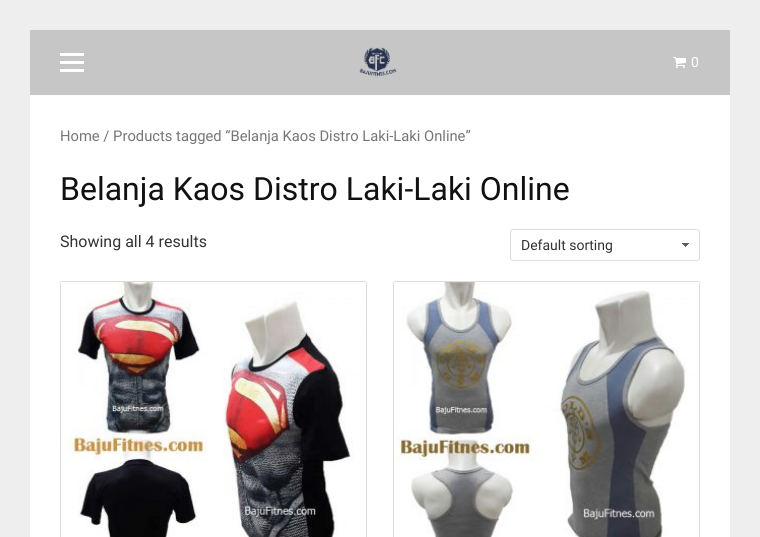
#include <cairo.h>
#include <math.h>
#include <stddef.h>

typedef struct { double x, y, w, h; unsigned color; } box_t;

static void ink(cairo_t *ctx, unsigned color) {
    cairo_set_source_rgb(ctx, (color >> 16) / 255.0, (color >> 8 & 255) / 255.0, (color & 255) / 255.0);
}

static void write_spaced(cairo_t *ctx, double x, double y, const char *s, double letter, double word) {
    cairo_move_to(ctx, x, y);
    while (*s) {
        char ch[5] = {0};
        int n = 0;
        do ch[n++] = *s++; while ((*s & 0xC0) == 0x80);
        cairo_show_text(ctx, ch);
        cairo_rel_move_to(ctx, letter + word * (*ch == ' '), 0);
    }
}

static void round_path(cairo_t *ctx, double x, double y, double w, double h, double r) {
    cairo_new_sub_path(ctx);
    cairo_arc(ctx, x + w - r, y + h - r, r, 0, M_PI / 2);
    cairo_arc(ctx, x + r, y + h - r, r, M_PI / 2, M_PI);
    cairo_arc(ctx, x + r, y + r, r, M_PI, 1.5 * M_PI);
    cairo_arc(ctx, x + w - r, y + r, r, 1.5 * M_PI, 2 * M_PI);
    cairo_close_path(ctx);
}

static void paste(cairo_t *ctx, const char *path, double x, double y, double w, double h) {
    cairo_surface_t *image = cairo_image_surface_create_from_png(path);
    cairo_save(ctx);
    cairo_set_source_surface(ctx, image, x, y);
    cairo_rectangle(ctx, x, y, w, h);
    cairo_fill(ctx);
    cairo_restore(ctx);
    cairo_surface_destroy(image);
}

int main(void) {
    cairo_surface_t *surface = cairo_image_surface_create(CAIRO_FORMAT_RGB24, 760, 537);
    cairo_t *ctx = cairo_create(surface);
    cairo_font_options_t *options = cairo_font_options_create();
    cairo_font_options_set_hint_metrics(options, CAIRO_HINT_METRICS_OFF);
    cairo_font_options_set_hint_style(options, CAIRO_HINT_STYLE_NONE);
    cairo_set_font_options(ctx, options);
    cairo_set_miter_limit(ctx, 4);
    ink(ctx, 0xEEEEEE);
    cairo_paint(ctx);
    {
        static const box_t items[] = {
            {30, 95, 700, 442, 0xFFFFFF},
            {30, 30, 700, 65, 0xC6C6C6},
            {60, 53, 24, 3, 0xFFFFFF},
            {60, 61, 24, 3, 0xFFFFFF},
            {60, 69, 24, 3, 0xFFFFFF},
        };
        for (size_t i = 0; i < sizeof items / sizeof *items; i++) {
            ink(ctx, items[i].color);
            cairo_rectangle(ctx, items[i].x, items[i].y, items[i].w, items[i].h);
            cairo_fill(ctx);
        }
    }
    paste(ctx, "media/1.png", 359, 47, 38, 30);
    paste(ctx, "media/2.png", 673, 57, 13, 11);
    cairo_select_font_face(ctx, "Roboto", CAIRO_FONT_SLANT_NORMAL, CAIRO_FONT_WEIGHT_NORMAL);
    cairo_set_font_size(ctx, 14);
    write_spaced(ctx, 691, 67, "0", 1, 0);
    cairo_set_font_size(ctx, 14.75);
    ink(ctx, 0x767676);
    cairo_move_to(ctx, 60, 141);
    cairo_show_text(ctx, "Home / Products tagged “Belanja Kaos Distro Laki-Laki Online”");
    cairo_set_font_size(ctx, 32);
    ink(ctx, 0x111111);
    cairo_move_to(ctx, 60, 200);
    cairo_show_text(ctx, "Belanja Kaos Distro Laki-Laki Online");
    cairo_set_font_size(ctx, 16);
    ink(ctx, 0x333333);
    cairo_move_to(ctx, 60, 247);
    cairo_show_text(ctx, "Showing all 4 results");
    paste(ctx, "media/3.png", 682, 243, 7, 4);
    round_path(ctx, 510.5, 229.5, 189, 31, 2.5);
    ink(ctx, 0xDDDDDD);
    cairo_set_line_width(ctx, 1);
    cairo_stroke(ctx);
    cairo_set_font_size(ctx, 14);
    ink(ctx, 0x333333);
    cairo_move_to(ctx, 521, 250);
    cairo_show_text(ctx, "Default sorting");
    round_path(ctx, 60.5, 281.5, 306, 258, 1.5);
    ink(ctx, 0xDDDDDD);
    cairo_stroke(ctx);
    paste(ctx, "media/4.png", 61, 282, 305, 255);
    round_path(ctx, 393.5, 281.5, 306, 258, 1.5);
    cairo_stroke(ctx);
    paste(ctx, "media/5.png", 394, 282, 305, 255);
    cairo_surface_write_to_png(surface, "image.png");
    cairo_font_options_destroy(options);
    cairo_destroy(ctx);
    cairo_surface_destroy(surface);
    return 0;
}
